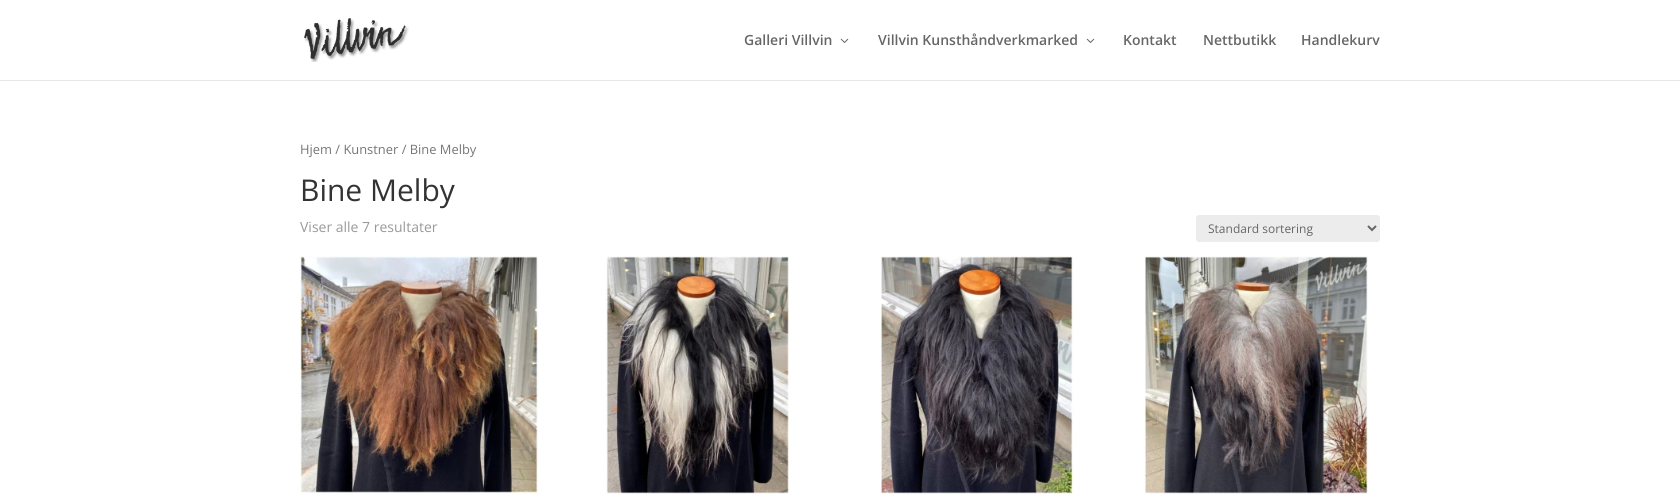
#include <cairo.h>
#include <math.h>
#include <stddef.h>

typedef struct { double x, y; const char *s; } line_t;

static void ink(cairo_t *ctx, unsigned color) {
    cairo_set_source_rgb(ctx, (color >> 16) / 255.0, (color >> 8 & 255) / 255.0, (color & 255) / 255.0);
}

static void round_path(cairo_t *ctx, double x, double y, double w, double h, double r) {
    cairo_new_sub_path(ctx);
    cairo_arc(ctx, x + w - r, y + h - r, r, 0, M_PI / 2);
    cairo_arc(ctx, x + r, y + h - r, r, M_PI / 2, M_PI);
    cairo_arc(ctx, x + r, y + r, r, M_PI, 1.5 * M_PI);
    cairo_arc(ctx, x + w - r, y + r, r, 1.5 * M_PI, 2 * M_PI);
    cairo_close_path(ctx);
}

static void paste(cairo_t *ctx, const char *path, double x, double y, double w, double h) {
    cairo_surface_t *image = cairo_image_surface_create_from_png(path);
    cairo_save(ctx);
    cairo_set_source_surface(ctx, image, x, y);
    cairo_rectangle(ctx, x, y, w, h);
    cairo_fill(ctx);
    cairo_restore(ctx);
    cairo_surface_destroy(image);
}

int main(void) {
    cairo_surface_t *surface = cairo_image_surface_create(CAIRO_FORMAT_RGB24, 1680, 504);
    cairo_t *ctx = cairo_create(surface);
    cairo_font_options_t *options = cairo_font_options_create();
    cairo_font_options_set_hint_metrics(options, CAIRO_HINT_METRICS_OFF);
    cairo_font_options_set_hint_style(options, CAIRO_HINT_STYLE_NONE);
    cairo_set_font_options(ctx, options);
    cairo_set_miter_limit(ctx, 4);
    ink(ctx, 0xFFFFFF);
    cairo_paint(ctx);
    ink(ctx, 0xE6E6E6);
    cairo_rectangle(ctx, 0, 80, 1680, 1);
    cairo_fill(ctx);
    paste(ctx, "media/1.png", 304, 18, 105, 44);
    cairo_select_font_face(ctx, "Open Sans SemiBold", CAIRO_FONT_SLANT_NORMAL, CAIRO_FONT_WEIGHT_NORMAL);
    cairo_set_font_size(ctx, 14);
    ink(ctx, 0x666666);
    cairo_move_to(ctx, 744, 45);
    cairo_show_text(ctx, "Galleri Villvin");
    paste(ctx, "media/2.png", 840, 38, 9, 5);
    cairo_move_to(ctx, 878, 45);
    cairo_show_text(ctx, "Villvin Kunsthåndverkmarked");
    paste(ctx, "media/2.png", 1086, 38, 9, 5);
    {
        static const line_t items[] = {
            {1123, 45, "Kontakt"},
            {1203, 45, "Nettbutikk"},
            {1301, 45, "Handlekurv"},
        };
        for (size_t i = 0; i < sizeof items / sizeof *items; i++) {
            cairo_move_to(ctx, items[i].x, items[i].y);
            cairo_show_text(ctx, items[i].s);
        }
    }
    cairo_select_font_face(ctx, "Open Sans", CAIRO_FONT_SLANT_NORMAL, CAIRO_FONT_WEIGHT_NORMAL);
    cairo_set_font_size(ctx, 12.9);
    ink(ctx, 0x767676);
    cairo_move_to(ctx, 300, 154);
    cairo_show_text(ctx, "Hjem / Kunstner / Bine Melby");
    cairo_set_font_size(ctx, 30);
    ink(ctx, 0x333333);
    cairo_move_to(ctx, 300, 201);
    cairo_show_text(ctx, "Bine Melby");
    cairo_set_font_size(ctx, 14);
    ink(ctx, 0x999999);
    cairo_move_to(ctx, 300, 232);
    cairo_show_text(ctx, "Viser alle 7 resultater");
    ink(ctx, 0xECECEC);
    round_path(ctx, 1196, 215, 184, 27, 3);
    cairo_fill(ctx);
    cairo_new_path(ctx);
    cairo_move_to(ctx, 1368, 226);
    cairo_line_to(ctx, 1372, 230);
    cairo_line_to(ctx, 1376, 226);
    ink(ctx, 0x666666);
    cairo_stroke(ctx);
    cairo_set_font_size(ctx, 12);
    cairo_move_to(ctx, 1208, 233);
    cairo_show_text(ctx, "Standard sortering");
    paste(ctx, "media/3.png", 300, 256, 238, 238);
    paste(ctx, "media/4.png", 605, 256, 184, 238);
    paste(ctx, "media/5.png", 880, 256, 194, 238);
    paste(ctx, "media/6.png", 1144, 256, 226, 238);
    cairo_surface_write_to_png(surface, "image.png");
    cairo_font_options_destroy(options);
    cairo_destroy(ctx);
    cairo_surface_destroy(surface);
    return 0;
}
